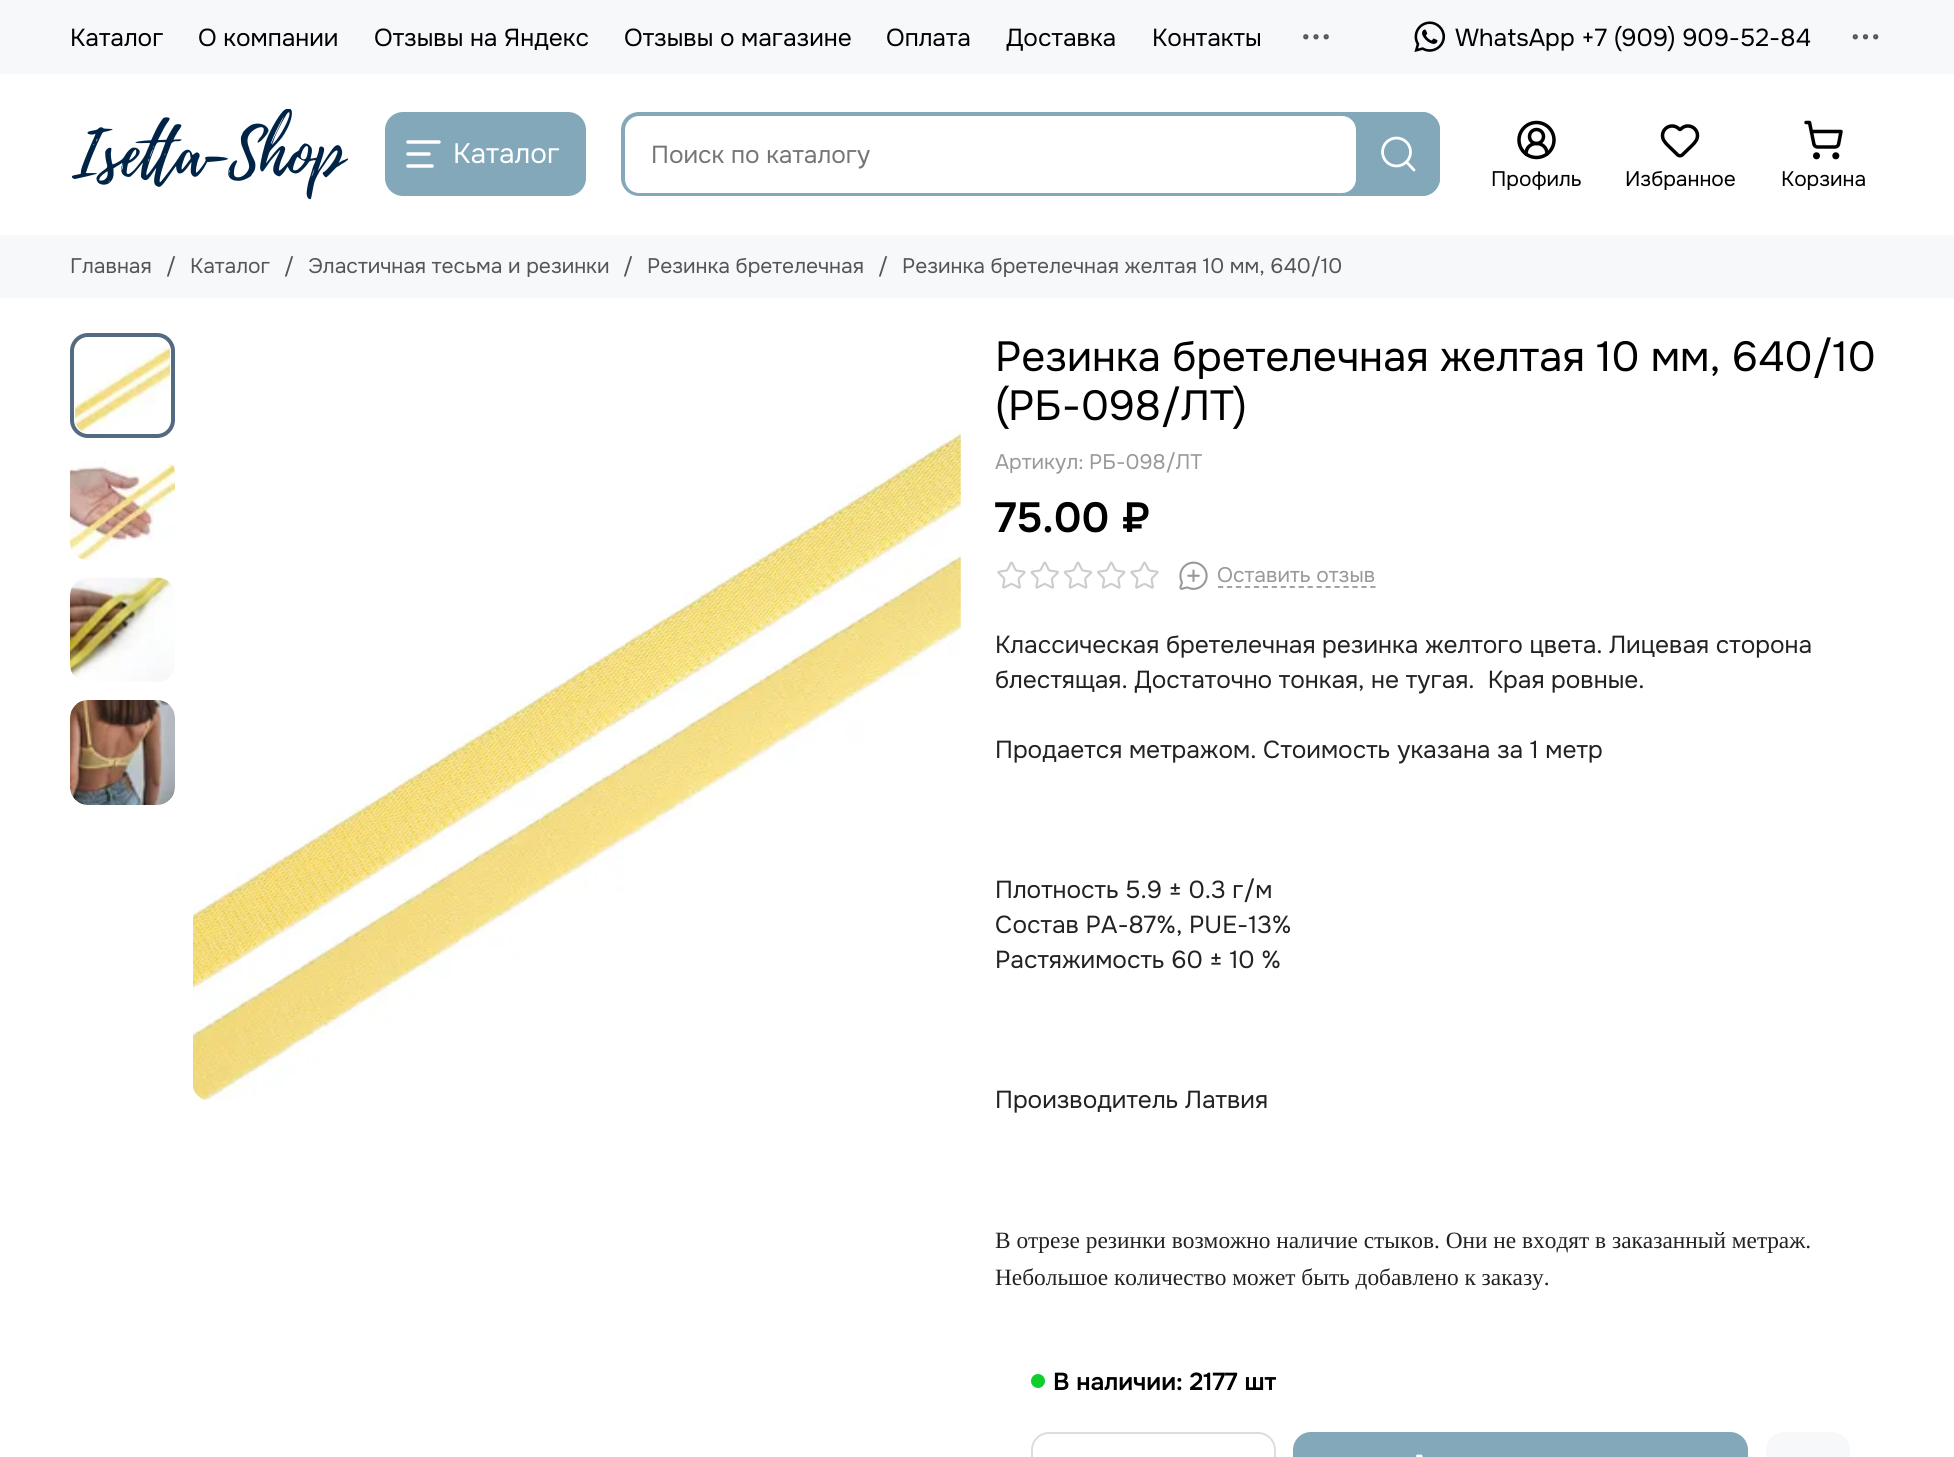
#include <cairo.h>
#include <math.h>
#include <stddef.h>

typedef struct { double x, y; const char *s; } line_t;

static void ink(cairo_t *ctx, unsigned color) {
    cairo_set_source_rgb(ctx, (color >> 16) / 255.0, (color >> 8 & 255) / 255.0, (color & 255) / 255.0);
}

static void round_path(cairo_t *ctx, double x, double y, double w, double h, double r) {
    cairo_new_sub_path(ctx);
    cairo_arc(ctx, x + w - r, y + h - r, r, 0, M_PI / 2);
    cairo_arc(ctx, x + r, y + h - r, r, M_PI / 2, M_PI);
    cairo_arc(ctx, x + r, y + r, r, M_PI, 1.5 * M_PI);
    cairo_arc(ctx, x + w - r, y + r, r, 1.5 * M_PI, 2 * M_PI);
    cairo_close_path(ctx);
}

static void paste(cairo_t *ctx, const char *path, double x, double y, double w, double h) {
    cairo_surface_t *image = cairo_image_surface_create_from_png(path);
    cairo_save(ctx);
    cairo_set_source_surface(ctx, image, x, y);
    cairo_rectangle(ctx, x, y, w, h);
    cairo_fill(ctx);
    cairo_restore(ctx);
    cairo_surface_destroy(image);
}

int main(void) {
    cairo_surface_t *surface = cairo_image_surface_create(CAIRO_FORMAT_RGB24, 1954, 1457);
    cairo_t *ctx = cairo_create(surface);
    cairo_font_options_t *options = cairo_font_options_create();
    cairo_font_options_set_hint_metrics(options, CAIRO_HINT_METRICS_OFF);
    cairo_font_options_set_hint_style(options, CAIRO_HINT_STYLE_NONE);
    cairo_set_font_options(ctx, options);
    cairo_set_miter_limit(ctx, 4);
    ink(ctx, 0xFFFFFF);
    cairo_paint(ctx);
    ink(ctx, 0xF7F8FA);
    cairo_rectangle(ctx, 0, 0, 1954, 74);
    cairo_fill(ctx);
    cairo_select_font_face(ctx, "Onest", CAIRO_FONT_SLANT_NORMAL, CAIRO_FONT_WEIGHT_NORMAL);
    cairo_set_font_size(ctx, 24.5);
    ink(ctx, 0x000000);
    {
        static const line_t items[] = {
            {70, 46, "Каталог"},
            {198, 46, "О компании"},
            {374, 46, "Отзывы на Яндекс"},
            {624, 46, "Отзывы о магазине"},
            {886, 46, "Оплата"},
            {1006, 46, "Доставка"},
            {1152, 46, "Контакты"},
        };
        for (size_t i = 0; i < sizeof items / sizeof *items; i++) {
            cairo_move_to(ctx, items[i].x, items[i].y);
            cairo_show_text(ctx, items[i].s);
        }
    }
    cairo_new_path(ctx);
    cairo_arc(ctx, 1316, 36.8, 1.5, 0, 2 * M_PI);
    ink(ctx, 0x555555);
    cairo_set_line_width(ctx, 2.3);
    cairo_stroke(ctx);
    cairo_arc(ctx, 1326.2, 36.8, 1.5, 0, 2 * M_PI);
    cairo_stroke(ctx);
    cairo_arc(ctx, 1305.8, 36.8, 1.5, 0, 2 * M_PI);
    cairo_stroke(ctx);
    paste(ctx, "media/1.png", 1414, 21, 31, 31);
    ink(ctx, 0x000000);
    cairo_move_to(ctx, 1455, 46);
    cairo_show_text(ctx, "WhatsApp +7 (909) 909-52-84");
    cairo_new_path(ctx);
    cairo_arc(ctx, 1865.5, 36.8, 1.5, 0, 2 * M_PI);
    ink(ctx, 0x555555);
    cairo_stroke(ctx);
    cairo_arc(ctx, 1875.7, 36.8, 1.5, 0, 2 * M_PI);
    cairo_stroke(ctx);
    cairo_arc(ctx, 1855.3, 36.8, 1.5, 0, 2 * M_PI);
    cairo_stroke(ctx);
    paste(ctx, "media/2.png", 72, 109, 276, 91);
    ink(ctx, 0x82A8BA);
    round_path(ctx, 385, 112, 201, 84, 18);
    cairo_fill(ctx);
    cairo_new_path(ctx);
    cairo_move_to(ctx, 439, 142);
    cairo_line_to(ctx, 408, 142);
    cairo_move_to(ctx, 429, 154);
    cairo_line_to(ctx, 408, 154);
    cairo_move_to(ctx, 432, 166);
    cairo_line_to(ctx, 408, 166);
    ink(ctx, 0xFFFFFF);
    cairo_set_line_width(ctx, 3.5);
    cairo_set_line_cap(ctx, CAIRO_LINE_CAP_ROUND);
    cairo_set_line_join(ctx, CAIRO_LINE_JOIN_ROUND);
    cairo_stroke(ctx);
    cairo_set_font_size(ctx, 28);
    cairo_move_to(ctx, 453, 163);
    cairo_show_text(ctx, "Каталог");
    ink(ctx, 0x82A8BA);
    round_path(ctx, 621, 112, 819, 84, 18);
    cairo_fill(ctx);
    ink(ctx, 0xFFFFFF);
    round_path(ctx, 625, 116, 731, 77, 14);
    cairo_fill(ctx);
    cairo_set_font_size(ctx, 24.5);
    ink(ctx, 0x757575);
    cairo_move_to(ctx, 651, 163);
    cairo_show_text(ctx, "Поиск по каталогу");
    ink(ctx, 0x82A8BA);
    cairo_new_path(ctx);
    cairo_move_to(ctx, 1356, 112);
    cairo_line_to(ctx, 1422, 112);
    cairo_curve_to(ctx, 1432, 112, 1440, 120, 1440, 130);
    cairo_line_to(ctx, 1440, 178);
    cairo_curve_to(ctx, 1440, 188, 1432, 196, 1422, 196);
    cairo_line_to(ctx, 1356, 196);
    cairo_close_path(ctx);
    cairo_fill(ctx);
    cairo_new_path(ctx);
    cairo_move_to(ctx, 1414, 170);
    cairo_line_to(ctx, 1406.5, 162);
    ink(ctx, 0xFFFFFF);
    cairo_set_line_width(ctx, 2.8);
    cairo_stroke(ctx);
    cairo_arc(ctx, 1396.5, 152, 14, 0, 2 * M_PI);
    cairo_set_line_cap(ctx, CAIRO_LINE_CAP_BUTT);
    cairo_set_line_join(ctx, CAIRO_LINE_JOIN_MITER);
    cairo_stroke(ctx);
    cairo_new_path(ctx);
    cairo_move_to(ctx, 1547, 154);
    cairo_curve_to(ctx, 1547, 140, 1526, 140, 1526, 154);
    ink(ctx, 0x000000);
    cairo_set_line_width(ctx, 3.5);
    cairo_set_line_cap(ctx, CAIRO_LINE_CAP_ROUND);
    cairo_set_line_join(ctx, CAIRO_LINE_JOIN_ROUND);
    cairo_stroke(ctx);
    cairo_arc(ctx, 1536.5, 136.5, 7, 0, 2 * M_PI);
    cairo_set_line_cap(ctx, CAIRO_LINE_CAP_BUTT);
    cairo_set_line_join(ctx, CAIRO_LINE_JOIN_MITER);
    cairo_stroke(ctx);
    cairo_arc(ctx, 1536.5, 140, 17.5, 0, 2 * M_PI);
    cairo_stroke(ctx);
    cairo_set_font_size(ctx, 21);
    cairo_move_to(ctx, 1491, 186);
    cairo_show_text(ctx, "Профиль");
    paste(ctx, "media/3.png", 1660, 124, 40, 34);
    cairo_move_to(ctx, 1625, 186);
    cairo_show_text(ctx, "Избранное");
    cairo_new_path(ctx);
    cairo_arc(ctx, 1816.5, 155.8, 1.8, 0, 2 * M_PI);
    cairo_stroke(ctx);
    cairo_arc(ctx, 1835.8, 155.8, 1.8, 0, 2 * M_PI);
    cairo_stroke(ctx);
    cairo_new_path(ctx);
    cairo_move_to(ctx, 1806, 122.5);
    cairo_line_to(ctx, 1809.5, 122.5);
    cairo_line_to(ctx, 1814, 144.5);
    cairo_curve_to(ctx, 1814.5, 146, 1816, 147, 1817.5, 147);
    cairo_line_to(ctx, 1835, 147);
    cairo_curve_to(ctx, 1836.5, 147, 1838, 146, 1838.5, 144.5);
    cairo_line_to(ctx, 1841, 131.5);
    cairo_line_to(ctx, 1811.5, 131.5);
    cairo_set_line_cap(ctx, CAIRO_LINE_CAP_ROUND);
    cairo_set_line_join(ctx, CAIRO_LINE_JOIN_ROUND);
    cairo_stroke(ctx);
    cairo_move_to(ctx, 1781, 186);
    cairo_show_text(ctx, "Корзина");
    ink(ctx, 0xF7F8FA);
    cairo_rectangle(ctx, 0, 235, 1954, 63);
    cairo_fill(ctx);
    ink(ctx, 0x555555);
    {
        static const line_t items[] = {
            {70, 273, "Главная"},
            {166, 273, "/"},
            {190, 273, "Каталог"},
            {284, 273, "/"},
            {308, 273, "Эластичная тесьма и резинки"},
            {623, 273, "/"},
            {647, 273, "Резинка бретелечная"},
            {878, 273, "/"},
            {902, 273, "Резинка бретелечная желтая 10 мм, 640/10"},
        };
        for (size_t i = 0; i < sizeof items / sizeof *items; i++) {
            cairo_move_to(ctx, items[i].x, items[i].y);
            cairo_show_text(ctx, items[i].s);
        }
    }
    paste(ctx, "media/4.png", 70, 343, 105, 93);
    round_path(ctx, 72.5, 335.5, 100, 100, 16.5);
    ink(ctx, 0xFFFFFF);
    cairo_set_line_width(ctx, 5);
    cairo_set_line_cap(ctx, CAIRO_LINE_CAP_BUTT);
    cairo_set_line_join(ctx, CAIRO_LINE_JOIN_MITER);
    cairo_stroke(ctx);
    round_path(ctx, 72, 335, 101, 101, 16);
    ink(ctx, 0x536A80);
    cairo_set_line_width(ctx, 4);
    cairo_stroke(ctx);
    paste(ctx, "media/5.png", 70, 462, 105, 98);
    paste(ctx, "media/6.png", 70, 577, 105, 105);
    paste(ctx, "media/7.png", 70, 700, 105, 105);
    paste(ctx, "media/8.png", 193, 429, 768, 672);
    cairo_set_font_size(ctx, 42);
    ink(ctx, 0x000000);
    cairo_move_to(ctx, 995, 371);
    cairo_show_text(ctx, "Резинка бретелечная желтая 10 мм, 640/10");
    cairo_move_to(ctx, 995, 420);
    cairo_show_text(ctx, "(РБ-098/ЛТ)");
    cairo_set_font_size(ctx, 21);
    ink(ctx, 0x999999);
    cairo_move_to(ctx, 995, 469);
    cairo_show_text(ctx, "Артикул: РБ-098/ЛТ");
    cairo_select_font_face(ctx, "Onest SemiBold", CAIRO_FONT_SLANT_NORMAL, CAIRO_FONT_WEIGHT_NORMAL);
    cairo_set_font_size(ctx, 42);
    ink(ctx, 0x000000);
    cairo_move_to(ctx, 995, 532);
    cairo_show_text(ctx, "75.00 ₽");
    paste(ctx, "media/9.png", 997, 561, 29, 28);
    paste(ctx, "media/10.png", 1030, 561, 29, 28);
    paste(ctx, "media/11.png", 1063, 561, 30, 28);
    paste(ctx, "media/12.png", 1097, 561, 29, 28);
    paste(ctx, "media/9.png", 1130, 561, 29, 28);
    paste(ctx, "media/13.png", 1179, 561, 29, 29);
    cairo_new_path(ctx);
    cairo_move_to(ctx, 1218, 587);
    cairo_line_to(ctx, 1375.5, 587);
    ink(ctx, 0x999999);
    cairo_set_line_width(ctx, 1.8);
    cairo_set_dash(ctx, (double[]){5.25, 3.71}, 2, 0);
    cairo_stroke(ctx);
    cairo_select_font_face(ctx, "Onest", CAIRO_FONT_SLANT_NORMAL, CAIRO_FONT_WEIGHT_NORMAL);
    cairo_set_font_size(ctx, 21);
    cairo_move_to(ctx, 1217, 582);
    cairo_show_text(ctx, "Оставить отзыв");
    cairo_set_font_size(ctx, 24.5);
    ink(ctx, 0x222222);
    {
        static const line_t items[] = {
            {995, 653, "Классическая бретелечная резинка желтого цвета. Лицевая сторона"},
            {995, 688, "блестящая. Достаточно тонкая, не тугая.  Края ровные."},
            {995, 758, "Продается метражом. Стоимость указана за 1 метр"},
            {995, 898, "Плотность 5.9 ± 0.3 г/м"},
            {995, 933, "Состав PA-87%, PUE-13%"},
            {995, 968, "Растяжимость 60 ± 10 %"},
            {995, 1108, "Производитель Латвия"},
        };
        for (size_t i = 0; i < sizeof items / sizeof *items; i++) {
            cairo_move_to(ctx, items[i].x, items[i].y);
            cairo_show_text(ctx, items[i].s);
        }
    }
    cairo_select_font_face(ctx, "Liberation Serif", CAIRO_FONT_SLANT_NORMAL, CAIRO_FONT_WEIGHT_NORMAL);
    cairo_set_font_size(ctx, 23.35);
    cairo_move_to(ctx, 995, 1248);
    cairo_show_text(ctx, "В отрезе резинки возможно наличие стыков. Они не входят в заказанный метраж.");
    cairo_move_to(ctx, 995, 1285);
    cairo_show_text(ctx, "Небольшое количество может быть добавлено к заказу.");
    ink(ctx, 0x0FCE2D);
    cairo_new_path(ctx);
    cairo_arc(ctx, 1038, 1381, 7, 0, 2 * M_PI);
    cairo_fill(ctx);
    cairo_select_font_face(ctx, "Onest SemiBold", CAIRO_FONT_SLANT_NORMAL, CAIRO_FONT_WEIGHT_NORMAL);
    cairo_set_font_size(ctx, 24.5);
    ink(ctx, 0x000000);
    cairo_move_to(ctx, 1053, 1390);
    cairo_show_text(ctx, "В наличии: 2177 шт");
    round_path(ctx, 1032, 1433, 243, 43, 17);
    ink(ctx, 0xDDDDDD);
    cairo_set_line_width(ctx, 2);
    cairo_set_dash(ctx, NULL, 0, 0);
    cairo_stroke(ctx);
    ink(ctx, 0x82A8BA);
    round_path(ctx, 1293, 1432, 455, 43, 18);
    cairo_fill(ctx);
    cairo_new_path(ctx);
    cairo_move_to(ctx, 1417.5, 1456);
    cairo_line_to(ctx, 1421, 1456);
    cairo_line_to(ctx, 1425.5, 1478);
    cairo_curve_to(ctx, 1426, 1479.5, 1427.5, 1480.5, 1429, 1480.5);
    cairo_line_to(ctx, 1446.5, 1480.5);
    cairo_curve_to(ctx, 1448, 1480.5, 1449.5, 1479.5, 1450, 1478);
    cairo_line_to(ctx, 1452.5, 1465);
    cairo_line_to(ctx, 1423, 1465);
    ink(ctx, 0xFFFFFF);
    cairo_set_line_width(ctx, 2.8);
    cairo_set_line_cap(ctx, CAIRO_LINE_CAP_ROUND);
    cairo_set_line_join(ctx, CAIRO_LINE_JOIN_ROUND);
    cairo_stroke(ctx);
    ink(ctx, 0xF7F8FA);
    round_path(ctx, 1766, 1432, 84, 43, 18);
    cairo_fill(ctx);
    cairo_surface_write_to_png(surface, "image.png");
    cairo_font_options_destroy(options);
    cairo_destroy(ctx);
    cairo_surface_destroy(surface);
    return 0;
}
